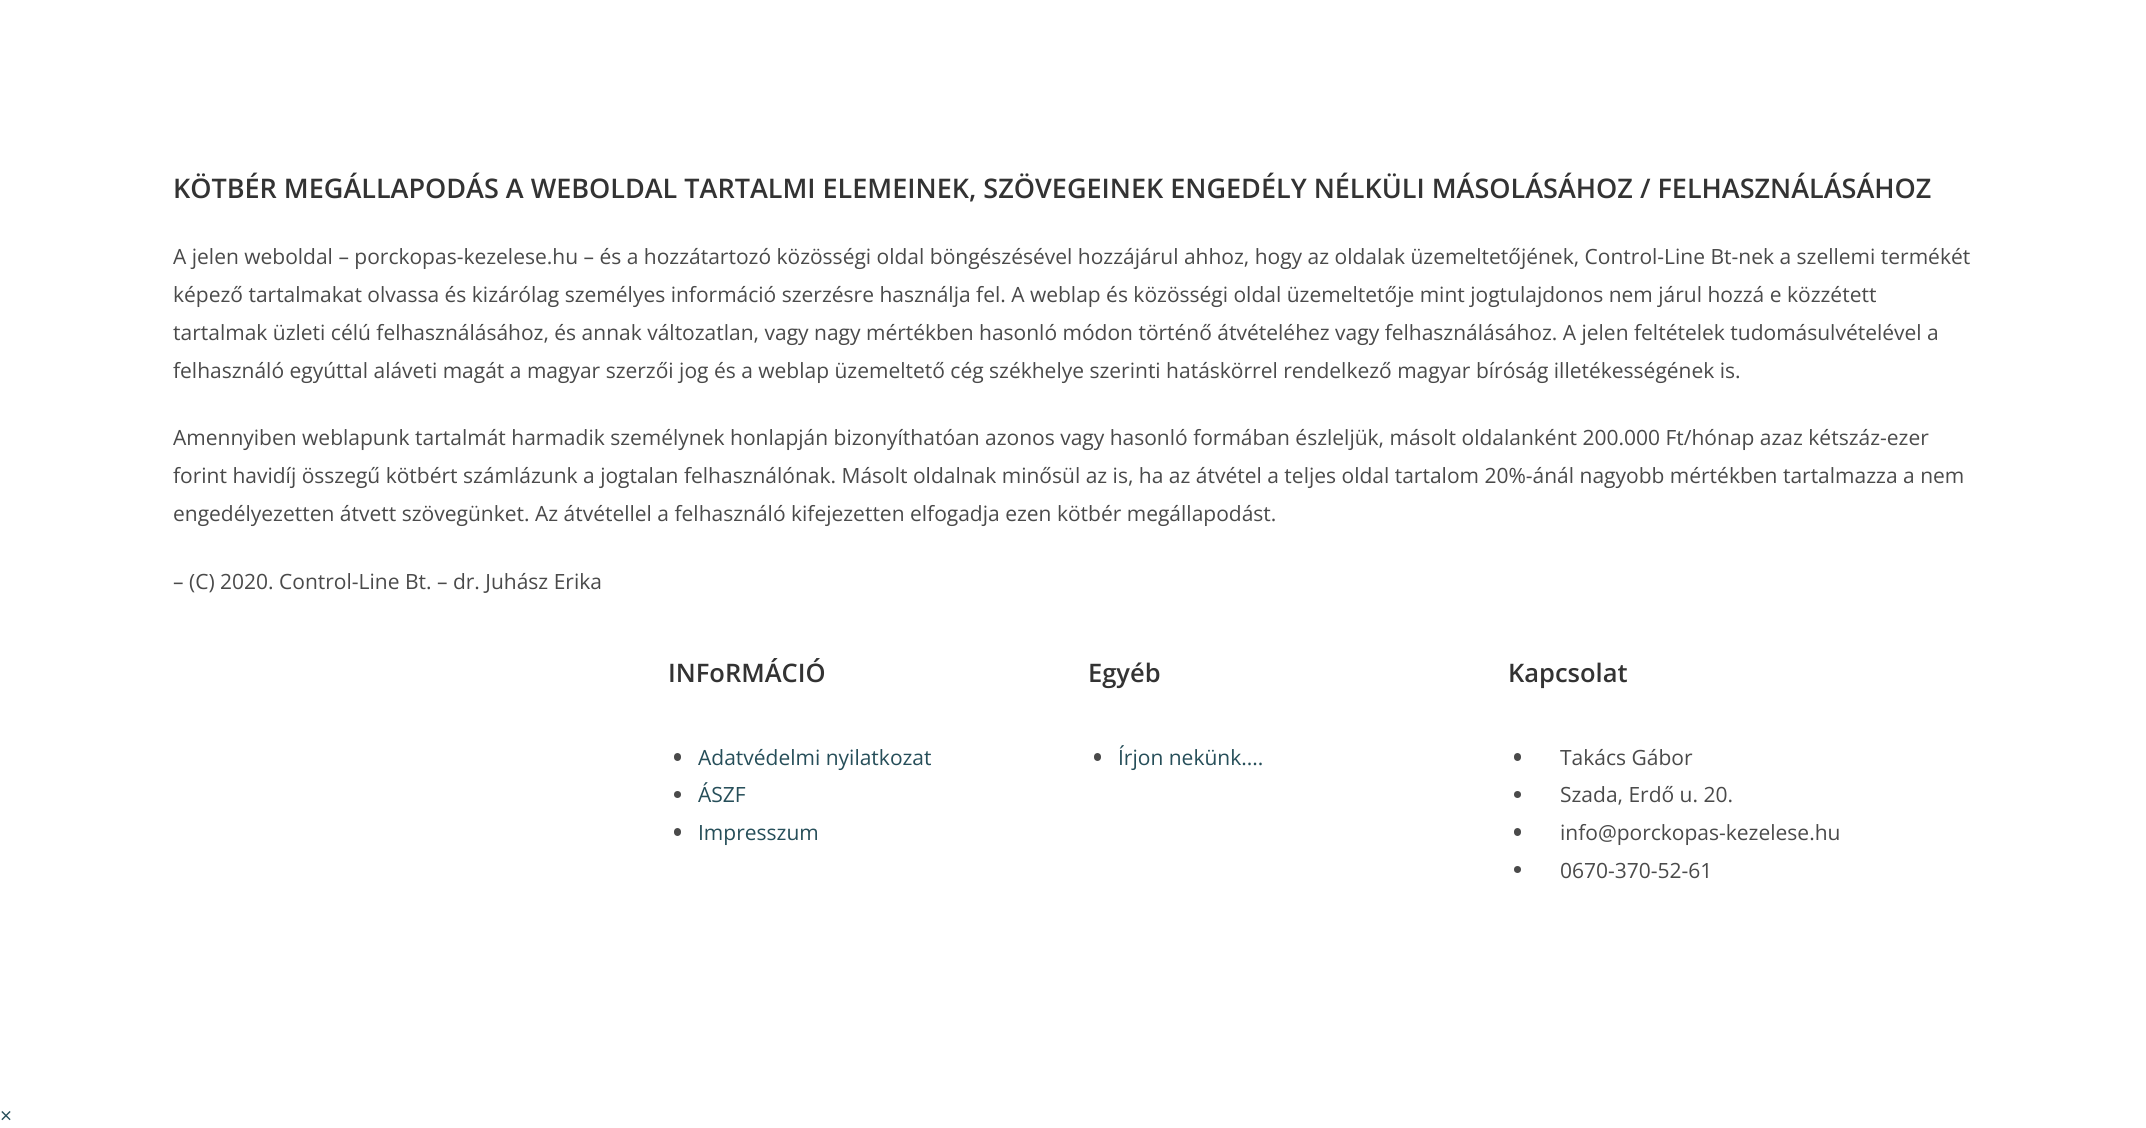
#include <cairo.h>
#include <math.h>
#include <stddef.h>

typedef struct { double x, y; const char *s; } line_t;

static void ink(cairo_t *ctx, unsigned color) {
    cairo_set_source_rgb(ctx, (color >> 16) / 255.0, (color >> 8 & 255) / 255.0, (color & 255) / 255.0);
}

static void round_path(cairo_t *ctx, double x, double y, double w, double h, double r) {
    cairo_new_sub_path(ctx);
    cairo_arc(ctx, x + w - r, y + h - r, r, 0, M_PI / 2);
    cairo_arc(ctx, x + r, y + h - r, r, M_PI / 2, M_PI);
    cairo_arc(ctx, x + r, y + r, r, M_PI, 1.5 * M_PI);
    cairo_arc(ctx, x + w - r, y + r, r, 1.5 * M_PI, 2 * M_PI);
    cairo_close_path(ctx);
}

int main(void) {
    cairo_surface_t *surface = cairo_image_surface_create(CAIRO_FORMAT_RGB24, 2146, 1128);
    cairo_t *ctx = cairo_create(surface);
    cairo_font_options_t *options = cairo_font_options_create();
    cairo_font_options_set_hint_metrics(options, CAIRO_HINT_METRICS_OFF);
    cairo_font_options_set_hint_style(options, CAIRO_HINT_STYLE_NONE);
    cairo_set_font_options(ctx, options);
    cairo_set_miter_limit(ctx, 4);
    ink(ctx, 0xFFFFFF);
    cairo_paint(ctx);
    cairo_select_font_face(ctx, "Open Sans SemiBold", CAIRO_FONT_SLANT_NORMAL, CAIRO_FONT_WEIGHT_NORMAL);
    cairo_set_font_size(ctx, 27);
    ink(ctx, 0x333333);
    cairo_move_to(ctx, 173, 198);
    cairo_show_text(ctx, "KÖTBÉR MEGÁLLAPODÁS A WEBOLDAL TARTALMI ELEMEINEK, SZÖVEGEINEK ENGEDÉLY NÉLKÜLI MÁSOLÁSÁHOZ / FELHASZNÁLÁSÁHOZ");
    cairo_select_font_face(ctx, "Open Sans", CAIRO_FONT_SLANT_NORMAL, CAIRO_FONT_WEIGHT_NORMAL);
    cairo_set_font_size(ctx, 21);
    ink(ctx, 0x4A4A4A);
    {
        static const line_t items[] = {
            {173, 264, "A jelen weboldal – porckopas-kezelese.hu – és a hozzátartozó közösségi oldal böngészésével hozzájárul ahhoz, hogy az oldalak üzemeltetőjének, Control-Line Bt-nek a szellemi termékét"},
            {173, 302, "képező tartalmakat olvassa és kizárólag személyes információ szerzésre használja fel. A weblap és közösségi oldal üzemeltetője mint jogtulajdonos nem járul hozzá e közzétett"},
            {173, 340, "tartalmak üzleti célú felhasználásához, és annak változatlan, vagy nagy mértékben hasonló módon történő átvételéhez vagy felhasználásához. A jelen feltételek tudomásulvételével a"},
            {173, 378, "felhasználó egyúttal aláveti magát a magyar szerzői jog és a weblap üzemeltető cég székhelye szerinti hatáskörrel rendelkező magyar bíróság illetékességének is."},
            {173, 445, "Amennyiben weblapunk tartalmát harmadik személynek honlapján bizonyíthatóan azonos vagy hasonló formában észleljük, másolt oldalanként 200.000 Ft/hónap azaz kétszáz-ezer"},
            {173, 483, "forint havidíj összegű kötbért számlázunk a jogtalan felhasználónak. Másolt oldalnak minősül az is, ha az átvétel a teljes oldal tartalom 20%-ánál nagyobb mértékben tartalmazza a nem"},
            {173, 521, "engedélyezetten átvett szövegünket. Az átvétellel a felhasználó kifejezetten elfogadja ezen kötbér megállapodást."},
            {173, 589, "– (C) 2020. Control-Line Bt. – dr. Juhász Erika"},
        };
        for (size_t i = 0; i < sizeof items / sizeof *items; i++) {
            cairo_move_to(ctx, items[i].x, items[i].y);
            cairo_show_text(ctx, items[i].s);
        }
    }
    cairo_select_font_face(ctx, "Open Sans SemiBold", CAIRO_FONT_SLANT_NORMAL, CAIRO_FONT_WEIGHT_NORMAL);
    cairo_set_font_size(ctx, 25.5);
    ink(ctx, 0x333333);
    cairo_move_to(ctx, 668, 682);
    cairo_show_text(ctx, "INFoRMÁCIÓ");
    ink(ctx, 0x4A4A4A);
    round_path(ctx, 674, 753, 7, 8, 3.5);
    cairo_fill(ctx);
    cairo_select_font_face(ctx, "Open Sans", CAIRO_FONT_SLANT_NORMAL, CAIRO_FONT_WEIGHT_NORMAL);
    cairo_set_font_size(ctx, 21);
    ink(ctx, 0x264E59);
    cairo_move_to(ctx, 698, 765);
    cairo_show_text(ctx, "Adatvédelmi nyilatkozat");
    ink(ctx, 0x4A4A4A);
    cairo_new_path(ctx);
    cairo_arc(ctx, 677.5, 794.5, 3.5, 0, 2 * M_PI);
    cairo_fill(ctx);
    ink(ctx, 0x264E59);
    cairo_move_to(ctx, 698, 802);
    cairo_show_text(ctx, "ÁSZF");
    ink(ctx, 0x4A4A4A);
    round_path(ctx, 674, 828, 7, 8, 3.5);
    cairo_fill(ctx);
    ink(ctx, 0x264E59);
    cairo_move_to(ctx, 698, 840);
    cairo_show_text(ctx, "Impresszum");
    cairo_select_font_face(ctx, "Open Sans SemiBold", CAIRO_FONT_SLANT_NORMAL, CAIRO_FONT_WEIGHT_NORMAL);
    cairo_set_font_size(ctx, 25.5);
    ink(ctx, 0x333333);
    cairo_move_to(ctx, 1088, 682);
    cairo_show_text(ctx, "Egyéb");
    ink(ctx, 0x4A4A4A);
    round_path(ctx, 1094, 753, 7, 8, 3.5);
    cairo_fill(ctx);
    cairo_select_font_face(ctx, "Open Sans", CAIRO_FONT_SLANT_NORMAL, CAIRO_FONT_WEIGHT_NORMAL);
    cairo_set_font_size(ctx, 21);
    ink(ctx, 0x264E59);
    cairo_move_to(ctx, 1118, 765);
    cairo_show_text(ctx, "Írjon nekünk....");
    cairo_select_font_face(ctx, "Open Sans SemiBold", CAIRO_FONT_SLANT_NORMAL, CAIRO_FONT_WEIGHT_NORMAL);
    cairo_set_font_size(ctx, 25.5);
    ink(ctx, 0x333333);
    cairo_move_to(ctx, 1508, 682);
    cairo_show_text(ctx, "Kapcsolat");
    ink(ctx, 0x4A4A4A);
    round_path(ctx, 1514, 753, 7, 8, 3.5);
    cairo_fill(ctx);
    cairo_select_font_face(ctx, "Open Sans", CAIRO_FONT_SLANT_NORMAL, CAIRO_FONT_WEIGHT_NORMAL);
    cairo_set_font_size(ctx, 21);
    cairo_move_to(ctx, 1560, 765);
    cairo_show_text(ctx, "Takács Gábor");
    cairo_new_path(ctx);
    cairo_arc(ctx, 1517.5, 794.5, 3.5, 0, 2 * M_PI);
    cairo_fill(ctx);
    cairo_move_to(ctx, 1560, 802);
    cairo_show_text(ctx, "Szada, Erdő u. 20.");
    round_path(ctx, 1514, 828, 7, 8, 3.5);
    cairo_fill(ctx);
    cairo_move_to(ctx, 1560, 840);
    cairo_show_text(ctx, "info@porckopas-kezelese.hu");
    cairo_new_path(ctx);
    cairo_arc(ctx, 1517.5, 869.5, 3.5, 0, 2 * M_PI);
    cairo_fill(ctx);
    cairo_move_to(ctx, 1560, 878);
    cairo_show_text(ctx, "0670-370-52-61");
    ink(ctx, 0x264E59);
    cairo_move_to(ctx, 0, 1123);
    cairo_show_text(ctx, "×");
    cairo_surface_write_to_png(surface, "image.png");
    cairo_font_options_destroy(options);
    cairo_destroy(ctx);
    cairo_surface_destroy(surface);
    return 0;
}
